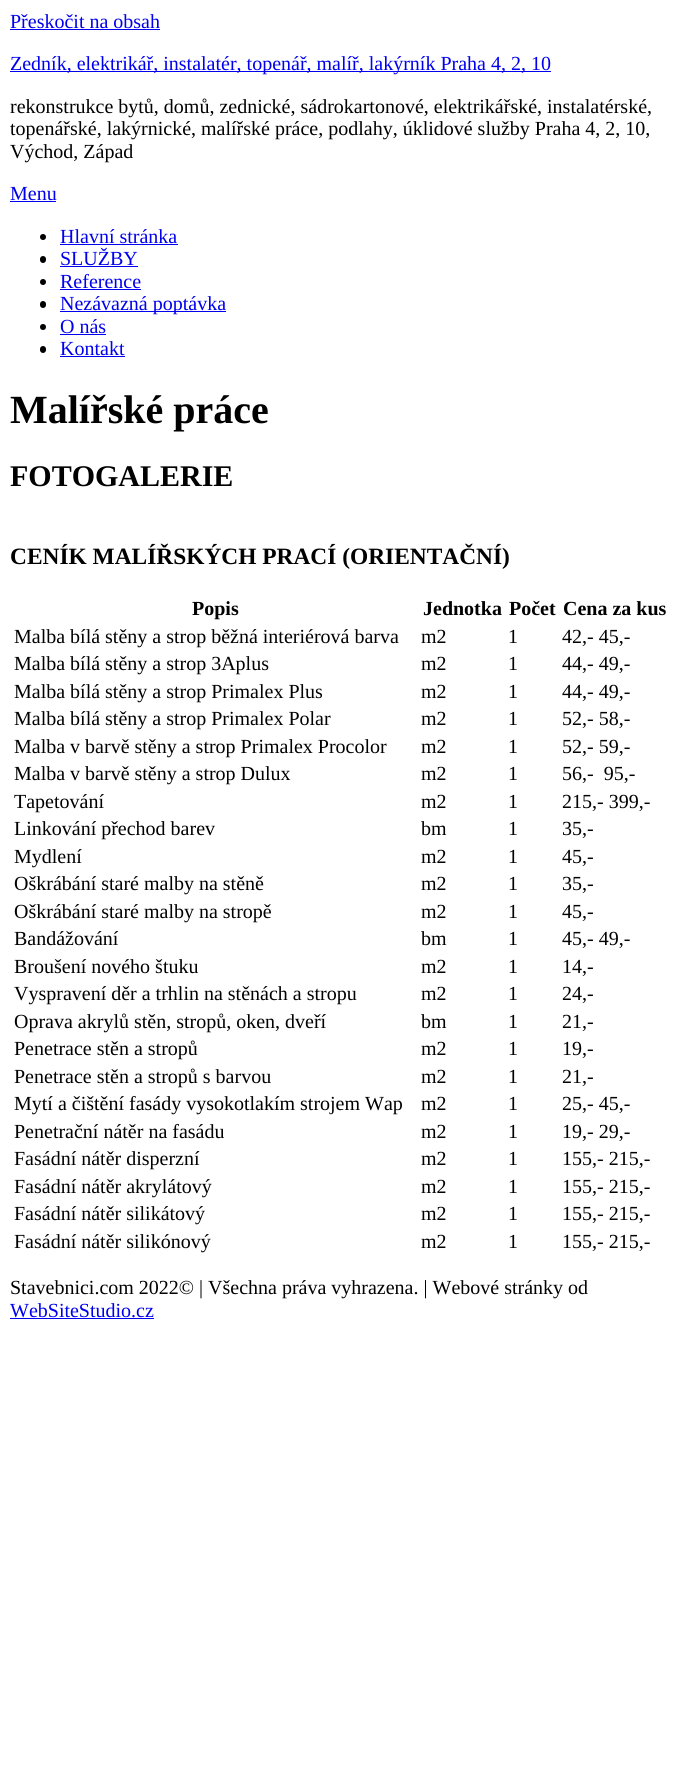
#include <cairo.h>
#include <math.h>
#include <stddef.h>

typedef struct { double x, y; const char *s; } line_t;

static void ink(cairo_t *ctx, unsigned color) {
    cairo_set_source_rgb(ctx, (color >> 16) / 255.0, (color >> 8 & 255) / 255.0, (color & 255) / 255.0);
}

static void round_path(cairo_t *ctx, double x, double y, double w, double h, double r) {
    cairo_new_sub_path(ctx);
    cairo_arc(ctx, x + w - r, y + h - r, r, 0, M_PI / 2);
    cairo_arc(ctx, x + r, y + h - r, r, M_PI / 2, M_PI);
    cairo_arc(ctx, x + r, y + r, r, M_PI, 1.5 * M_PI);
    cairo_arc(ctx, x + w - r, y + r, r, 1.5 * M_PI, 2 * M_PI);
    cairo_close_path(ctx);
}

int main(void) {
    cairo_surface_t *surface = cairo_image_surface_create(CAIRO_FORMAT_RGB24, 690, 1780);
    cairo_t *ctx = cairo_create(surface);
    cairo_font_options_t *options = cairo_font_options_create();
    cairo_font_options_set_hint_metrics(options, CAIRO_HINT_METRICS_OFF);
    cairo_font_options_set_hint_style(options, CAIRO_HINT_STYLE_NONE);
    cairo_set_font_options(ctx, options);
    cairo_set_miter_limit(ctx, 4);
    ink(ctx, 0xFFFFFF);
    cairo_paint(ctx);
    cairo_select_font_face(ctx, "Liberation Serif", CAIRO_FONT_SLANT_NORMAL, CAIRO_FONT_WEIGHT_NORMAL);
    cairo_set_font_size(ctx, 20);
    ink(ctx, 0x0000EE);
    cairo_move_to(ctx, 10, 28);
    cairo_show_text(ctx, "Přeskočit na obsah");
    cairo_rectangle(ctx, 10, 29, 150, 1);
    cairo_fill(ctx);
    cairo_rectangle(ctx, 10, 71, 541, 1);
    cairo_fill(ctx);
    cairo_move_to(ctx, 10, 70);
    cairo_show_text(ctx, "Zedník, elektrikář, instalatér, topenář, malíř, lakýrník Praha 4, 2, 10");
    ink(ctx, 0x000000);
    {
        static const line_t items[] = {
            {10, 113, "rekonstrukce bytů, domů, zednické, sádrokartonové, elektrikářské, instalatérské,"},
            {10, 135, "topenářské, lakýrnické, malířské práce, podlahy, úklidové služby Praha 4, 2, 10,"},
            {10, 158, "Východ, Západ"},
        };
        for (size_t i = 0; i < sizeof items / sizeof *items; i++) {
            cairo_move_to(ctx, items[i].x, items[i].y);
            cairo_show_text(ctx, items[i].s);
        }
    }
    ink(ctx, 0x0000EE);
    cairo_move_to(ctx, 10, 200);
    cairo_show_text(ctx, "Menu");
    cairo_rectangle(ctx, 10, 201, 46, 1);
    cairo_fill(ctx);
    ink(ctx, 0x000000);
    cairo_arc(ctx, 43, 237, 3, 0, 2 * M_PI);
    cairo_fill(ctx);
    ink(ctx, 0x0000EE);
    cairo_move_to(ctx, 60, 243);
    cairo_show_text(ctx, "Hlavní stránka");
    cairo_rectangle(ctx, 60, 244, 118, 1);
    cairo_fill(ctx);
    ink(ctx, 0x000000);
    round_path(ctx, 40, 256, 6, 7, 3);
    cairo_fill(ctx);
    ink(ctx, 0x0000EE);
    cairo_move_to(ctx, 60, 265);
    cairo_show_text(ctx, "SLUŽBY");
    cairo_rectangle(ctx, 60, 266, 78, 1);
    cairo_fill(ctx);
    ink(ctx, 0x000000);
    cairo_arc(ctx, 43, 282, 3, 0, 2 * M_PI);
    cairo_fill(ctx);
    ink(ctx, 0x0000EE);
    cairo_move_to(ctx, 60, 288);
    cairo_show_text(ctx, "Reference");
    cairo_rectangle(ctx, 60, 289, 81, 1);
    cairo_fill(ctx);
    ink(ctx, 0x000000);
    round_path(ctx, 40, 301, 6, 7, 3);
    cairo_fill(ctx);
    ink(ctx, 0x0000EE);
    cairo_rectangle(ctx, 60, 311, 166, 1);
    cairo_fill(ctx);
    cairo_move_to(ctx, 60, 310);
    cairo_show_text(ctx, "Nezávazná poptávka");
    ink(ctx, 0x000000);
    cairo_new_path(ctx);
    cairo_arc(ctx, 43, 327, 3, 0, 2 * M_PI);
    cairo_fill(ctx);
    ink(ctx, 0x0000EE);
    cairo_move_to(ctx, 60, 333);
    cairo_show_text(ctx, "O nás");
    cairo_rectangle(ctx, 60, 334, 46, 1);
    cairo_fill(ctx);
    ink(ctx, 0x000000);
    round_path(ctx, 40, 346, 6, 7, 3);
    cairo_fill(ctx);
    ink(ctx, 0x0000EE);
    cairo_move_to(ctx, 60, 355);
    cairo_show_text(ctx, "Kontakt");
    cairo_rectangle(ctx, 60, 356, 65, 1);
    cairo_fill(ctx);
    cairo_select_font_face(ctx, "Liberation Serif", CAIRO_FONT_SLANT_NORMAL, CAIRO_FONT_WEIGHT_BOLD);
    cairo_set_font_size(ctx, 40);
    ink(ctx, 0x000000);
    cairo_move_to(ctx, 10, 423);
    cairo_show_text(ctx, "Malířské práce");
    cairo_set_font_size(ctx, 30);
    cairo_move_to(ctx, 10, 486);
    cairo_show_text(ctx, "FOTOGALERIE");
    cairo_set_font_size(ctx, 23.4);
    cairo_move_to(ctx, 10, 564);
    cairo_show_text(ctx, "CENÍK MALÍŘSKÝCH PRACÍ (ORIENTAČNÍ)");
    cairo_set_font_size(ctx, 20);
    {
        static const line_t items[] = {
            {192, 615, "Popis"},
            {423, 615, "Jednotka"},
            {509, 615, "Počet"},
            {563, 615, "Cena za kus"},
        };
        for (size_t i = 0; i < sizeof items / sizeof *items; i++) {
            cairo_move_to(ctx, items[i].x, items[i].y);
            cairo_show_text(ctx, items[i].s);
        }
    }
    cairo_select_font_face(ctx, "Liberation Serif", CAIRO_FONT_SLANT_NORMAL, CAIRO_FONT_WEIGHT_NORMAL);
    {
        static const line_t items[] = {
            {14, 643, "Malba bílá stěny a strop běžná interiérová barva"},
            {421, 643, "m2"},
            {508, 643, "1"},
            {562, 643, "42,- 45,-"},
            {14, 670, "Malba bílá stěny a strop 3Aplus"},
            {421, 670, "m2"},
            {508, 670, "1"},
            {562, 670, "44,- 49,-"},
            {14, 698, "Malba bílá stěny a strop Primalex Plus"},
            {421, 698, "m2"},
            {508, 698, "1"},
            {562, 698, "44,- 49,-"},
            {14, 725, "Malba bílá stěny a strop Primalex Polar"},
            {421, 725, "m2"},
            {508, 725, "1"},
            {562, 725, "52,- 58,-"},
            {14, 753, "Malba v barvě stěny a strop Primalex Procolor"},
            {421, 753, "m2"},
            {508, 753, "1"},
            {562, 753, "52,- 59,-"},
            {14, 780, "Malba v barvě stěny a strop Dulux"},
            {421, 780, "m2"},
            {508, 780, "1"},
            {562, 780, "56,-  95,-"},
            {14, 808, "Tapetování"},
            {421, 808, "m2"},
            {508, 808, "1"},
            {562, 808, "215,- 399,-"},
            {14, 835, "Linkování přechod barev"},
            {421, 835, "bm"},
            {508, 835, "1"},
            {562, 835, "35,-"},
            {14, 863, "Mydlení"},
            {421, 863, "m2"},
            {508, 863, "1"},
            {562, 863, "45,-"},
            {14, 890, "Oškrábání staré malby na stěně"},
            {421, 890, "m2"},
            {508, 890, "1"},
            {562, 890, "35,-"},
            {14, 918, "Oškrábání staré malby na stropě"},
            {421, 918, "m2"},
            {508, 918, "1"},
            {562, 918, "45,-"},
            {14, 945, "Bandážování"},
            {421, 945, "bm"},
            {508, 945, "1"},
            {562, 945, "45,- 49,-"},
            {14, 973, "Broušení nového štuku"},
            {421, 973, "m2"},
            {508, 973, "1"},
            {562, 973, "14,-"},
            {14, 1000, "Vyspravení děr a trhlin na stěnách a stropu"},
            {421, 1000, "m2"},
            {508, 1000, "1"},
            {562, 1000, "24,-"},
            {14, 1028, "Oprava akrylů stěn, stropů, oken, dveří"},
            {421, 1028, "bm"},
            {508, 1028, "1"},
            {562, 1028, "21,-"},
            {14, 1055, "Penetrace stěn a stropů"},
            {421, 1055, "m2"},
            {508, 1055, "1"},
            {562, 1055, "19,-"},
            {14, 1083, "Penetrace stěn a stropů s barvou"},
            {421, 1083, "m2"},
            {508, 1083, "1"},
            {562, 1083, "21,-"},
            {14, 1110, "Mytí a čištění fasády vysokotlakím strojem Wap"},
            {421, 1110, "m2"},
            {508, 1110, "1"},
            {562, 1110, "25,- 45,-"},
            {14, 1138, "Penetrační nátěr na fasádu"},
            {421, 1138, "m2"},
            {508, 1138, "1"},
            {562, 1138, "19,- 29,-"},
            {14, 1165, "Fasádní nátěr disperzní"},
            {421, 1165, "m2"},
            {508, 1165, "1"},
            {562, 1165, "155,- 215,-"},
            {14, 1193, "Fasádní nátěr akrylátový"},
            {421, 1193, "m2"},
            {508, 1193, "1"},
            {562, 1193, "155,- 215,-"},
            {14, 1220, "Fasádní nátěr silikátový"},
            {421, 1220, "m2"},
            {508, 1220, "1"},
            {562, 1220, "155,- 215,-"},
            {14, 1248, "Fasádní nátěr silikónový"},
            {421, 1248, "m2"},
            {508, 1248, "1"},
            {562, 1248, "155,- 215,-"},
            {10, 1294, "Stavebnici.com 2022© | Všechna práva vyhrazena. | Webové stránky od"},
        };
        for (size_t i = 0; i < sizeof items / sizeof *items; i++) {
            cairo_move_to(ctx, items[i].x, items[i].y);
            cairo_show_text(ctx, items[i].s);
        }
    }
    ink(ctx, 0x0000EE);
    cairo_move_to(ctx, 10, 1317);
    cairo_show_text(ctx, "WebSiteStudio.cz");
    cairo_rectangle(ctx, 10, 1318, 144, 1);
    cairo_fill(ctx);
    cairo_surface_write_to_png(surface, "image.png");
    cairo_font_options_destroy(options);
    cairo_destroy(ctx);
    cairo_surface_destroy(surface);
    return 0;
}
